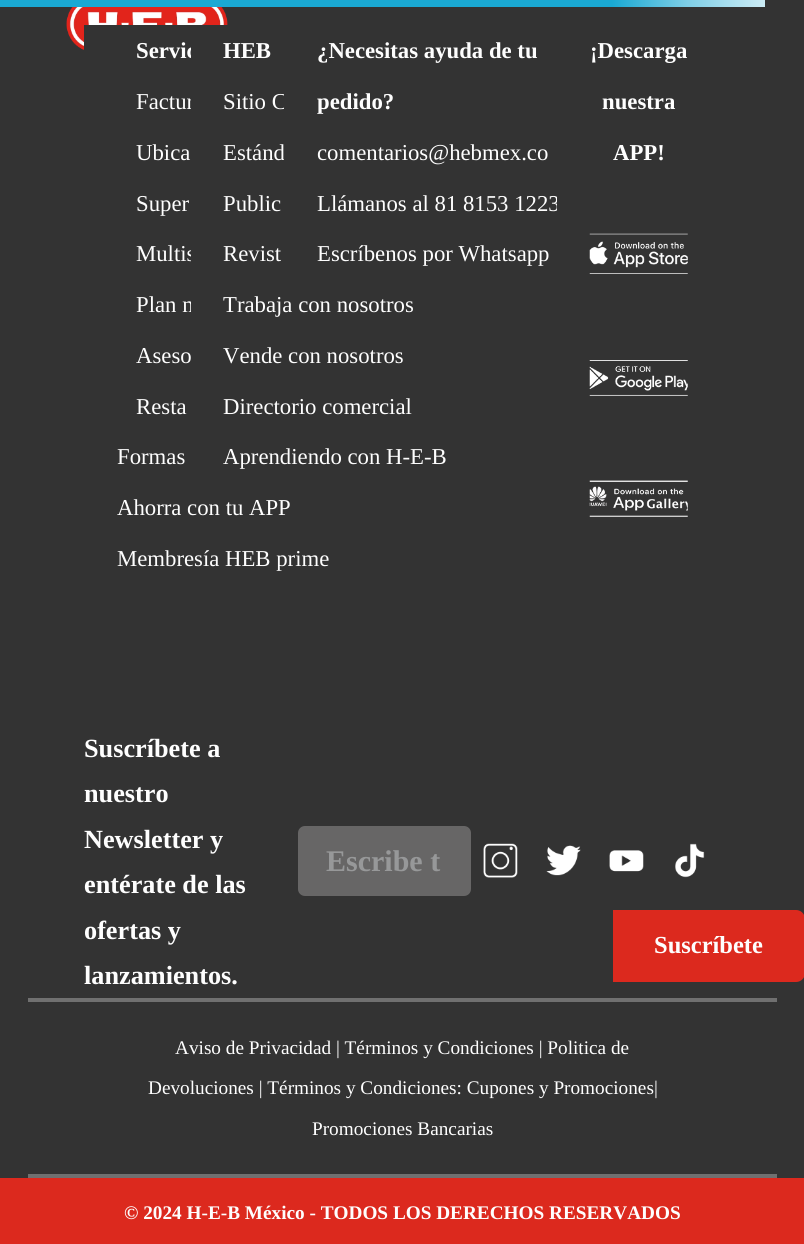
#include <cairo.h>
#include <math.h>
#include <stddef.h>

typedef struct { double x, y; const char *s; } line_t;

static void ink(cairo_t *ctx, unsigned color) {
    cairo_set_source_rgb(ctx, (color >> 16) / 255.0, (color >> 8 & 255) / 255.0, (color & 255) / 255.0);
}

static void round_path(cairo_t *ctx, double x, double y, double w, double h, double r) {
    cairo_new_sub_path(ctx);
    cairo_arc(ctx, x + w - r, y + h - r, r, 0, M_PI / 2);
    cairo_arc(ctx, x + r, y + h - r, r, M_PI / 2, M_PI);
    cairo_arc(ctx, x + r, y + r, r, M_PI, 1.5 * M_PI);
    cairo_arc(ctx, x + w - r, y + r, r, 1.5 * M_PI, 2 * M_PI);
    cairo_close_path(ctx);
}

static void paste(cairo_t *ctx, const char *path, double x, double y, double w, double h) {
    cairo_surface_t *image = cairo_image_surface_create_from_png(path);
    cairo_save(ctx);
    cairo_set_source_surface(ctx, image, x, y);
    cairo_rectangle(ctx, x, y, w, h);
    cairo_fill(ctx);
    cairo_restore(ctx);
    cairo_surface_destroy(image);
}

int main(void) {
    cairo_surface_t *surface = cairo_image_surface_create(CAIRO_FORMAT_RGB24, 804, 1244);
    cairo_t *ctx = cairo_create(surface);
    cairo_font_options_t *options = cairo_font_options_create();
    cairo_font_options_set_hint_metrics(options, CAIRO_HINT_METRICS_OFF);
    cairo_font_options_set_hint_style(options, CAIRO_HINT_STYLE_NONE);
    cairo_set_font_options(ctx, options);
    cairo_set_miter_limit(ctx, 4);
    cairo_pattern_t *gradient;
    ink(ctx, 0x333333);
    cairo_paint(ctx);
    gradient = cairo_pattern_create_linear(0, 3.5, 765, 3.5);
    cairo_pattern_add_color_stop_rgba(gradient, 0.8, 0.102, 0.663, 0.827, 1);
    cairo_pattern_add_color_stop_rgba(gradient, 0.9, 0.502, 0.812, 0.906, 1);
    cairo_pattern_add_color_stop_rgba(gradient, 1, 0.8, 0.925, 0.961, 1);
    cairo_set_source(ctx, gradient);
    cairo_pattern_destroy(gradient);
    cairo_rectangle(ctx, 0, 0, 765, 7);
    cairo_fill(ctx);
    paste(ctx, "media/1.png", 66, 7, 162, 43);
    ink(ctx, 0x333333);
    cairo_rectangle(ctx, 84, 25, 107, 25);
    cairo_fill(ctx);
    cairo_select_font_face(ctx, "Liberation Serif", CAIRO_FONT_SLANT_NORMAL, CAIRO_FONT_WEIGHT_BOLD);
    cairo_set_font_size(ctx, 22.75);
    ink(ctx, 0xFEFEFE);
    cairo_move_to(ctx, 136, 58);
    cairo_show_text(ctx, "Servic");
    cairo_select_font_face(ctx, "Liberation Serif", CAIRO_FONT_SLANT_NORMAL, CAIRO_FONT_WEIGHT_NORMAL);
    {
        static const line_t items[] = {
            {136, 109, "Factur"},
            {136, 160, "Ubica"},
            {136, 211, "Super"},
            {136, 261, "Multis"},
            {136, 312, "Plan m"},
            {136, 363, "Aseso"},
            {136, 414, "Resta"},
        };
        for (size_t i = 0; i < sizeof items / sizeof *items; i++) {
            cairo_move_to(ctx, items[i].x, items[i].y);
            cairo_show_text(ctx, items[i].s);
        }
    }
    ink(ctx, 0x333333);
    cairo_rectangle(ctx, 191, 25, 37, 287);
    cairo_fill(ctx);
    ink(ctx, 0xFEFEFE);
    cairo_move_to(ctx, 223, 109);
    cairo_show_text(ctx, "Sitio C");
    cairo_move_to(ctx, 223, 160);
    cairo_show_text(ctx, "Estánd");
    ink(ctx, 0x333333);
    cairo_rectangle(ctx, 284, 94, 2, 66);
    cairo_fill(ctx);
    cairo_select_font_face(ctx, "Liberation Serif", CAIRO_FONT_SLANT_NORMAL, CAIRO_FONT_WEIGHT_BOLD);
    ink(ctx, 0xFEFEFE);
    cairo_move_to(ctx, 317, 58);
    cairo_show_text(ctx, "¿Necesitas ayuda de tu");
    cairo_move_to(ctx, 317, 109);
    cairo_show_text(ctx, "pedido?");
    cairo_select_font_face(ctx, "Liberation Serif", CAIRO_FONT_SLANT_NORMAL, CAIRO_FONT_WEIGHT_NORMAL);
    {
        static const line_t items[] = {
            {317, 160, "comentarios@hebmex.co"},
            {317, 211, "Llámanos al 81 8153 1223"},
            {317, 261, "Escríbenos por Whatsapp"},
        };
        for (size_t i = 0; i < sizeof items / sizeof *items; i++) {
            cairo_move_to(ctx, items[i].x, items[i].y);
            cairo_show_text(ctx, items[i].s);
        }
    }
    cairo_select_font_face(ctx, "Liberation Serif", CAIRO_FONT_SLANT_NORMAL, CAIRO_FONT_WEIGHT_BOLD);
    cairo_move_to(ctx, 223, 58);
    cairo_show_text(ctx, "HEB");
    cairo_select_font_face(ctx, "Liberation Serif", CAIRO_FONT_SLANT_NORMAL, CAIRO_FONT_WEIGHT_NORMAL);
    {
        static const line_t items[] = {
            {223, 211, "Public"},
            {223, 261, "Revist"},
            {223, 312, "Trabaja con nosotros"},
            {223, 363, "Vende con nosotros"},
            {223, 414, "Directorio comercial"},
            {223, 464, "Aprendiendo con H-E-B"},
        };
        for (size_t i = 0; i < sizeof items / sizeof *items; i++) {
            cairo_move_to(ctx, items[i].x, items[i].y);
            cairo_show_text(ctx, items[i].s);
        }
    }
    ink(ctx, 0x333333);
    cairo_rectangle(ctx, 557, 196, 3, 15);
    cairo_fill(ctx);
    cairo_select_font_face(ctx, "Liberation Serif", CAIRO_FONT_SLANT_NORMAL, CAIRO_FONT_WEIGHT_BOLD);
    ink(ctx, 0xFEFEFE);
    {
        static const line_t items[] = {
            {590, 58, "¡Descarga"},
            {602, 109, "nuestra"},
            {613, 160, "APP!"},
        };
        for (size_t i = 0; i < sizeof items / sizeof *items; i++) {
            cairo_move_to(ctx, items[i].x, items[i].y);
            cairo_show_text(ctx, items[i].s);
        }
    }
    paste(ctx, "media/2.png", 589, 233, 99, 41);
    paste(ctx, "media/3.png", 589, 360, 99, 36);
    paste(ctx, "media/4.png", 589, 480, 99, 37);
    cairo_select_font_face(ctx, "Liberation Serif", CAIRO_FONT_SLANT_NORMAL, CAIRO_FONT_WEIGHT_NORMAL);
    {
        static const line_t items[] = {
            {117, 464, "Formas"},
            {117, 515, "Ahorra con tu APP"},
            {117, 566, "Membresía HEB prime"},
        };
        for (size_t i = 0; i < sizeof items / sizeof *items; i++) {
            cairo_move_to(ctx, items[i].x, items[i].y);
            cairo_show_text(ctx, items[i].s);
        }
    }
    cairo_select_font_face(ctx, "Liberation Serif", CAIRO_FONT_SLANT_NORMAL, CAIRO_FONT_WEIGHT_BOLD);
    cairo_set_font_size(ctx, 26.25);
    {
        static const line_t items[] = {
            {84, 757, "Suscríbete a"},
            {84, 802, "nuestro"},
            {84, 848, "Newsletter y"},
            {84, 893, "entérate de las"},
            {84, 939, "ofertas y"},
            {84, 984, "lanzamientos."},
        };
        for (size_t i = 0; i < sizeof items / sizeof *items; i++) {
            cairo_move_to(ctx, items[i].x, items[i].y);
            cairo_show_text(ctx, items[i].s);
        }
    }
    cairo_save(ctx);
    round_path(ctx, 298, 826, 173, 70, 7);
    cairo_clip(ctx);
    ink(ctx, 0x676666);
    round_path(ctx, 298, 826, 173, 72, 7);
    cairo_fill(ctx);
    cairo_restore(ctx);
    cairo_set_font_size(ctx, 30);
    ink(ctx, 0x979899);
    cairo_move_to(ctx, 326, 871);
    cairo_show_text(ctx, "Escribe t");
    ink(ctx, 0xDC291E);
    cairo_new_path(ctx);
    cairo_move_to(ctx, 613, 910);
    cairo_line_to(ctx, 796, 910);
    cairo_curve_to(ctx, 801, 910, 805, 914, 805, 919);
    cairo_line_to(ctx, 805, 973);
    cairo_curve_to(ctx, 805, 978, 801, 982, 796, 982);
    cairo_line_to(ctx, 613, 982);
    cairo_close_path(ctx);
    cairo_fill(ctx);
    cairo_set_font_size(ctx, 24.5);
    ink(ctx, 0xFEFEFE);
    cairo_move_to(ctx, 654, 953);
    cairo_show_text(ctx, "Suscríbete");
    paste(ctx, "media/5.png", 483, 843, 35, 35);
    paste(ctx, "media/6.png", 546, 845, 35, 31);
    paste(ctx, "media/7.png", 609, 850, 35, 22);
    paste(ctx, "media/8.png", 675, 843, 30, 35);
    ink(ctx, 0x707070);
    cairo_rectangle(ctx, 28, 998, 749, 4);
    cairo_fill(ctx);
    cairo_rectangle(ctx, 28, 1174, 749, 4);
    cairo_fill(ctx);
    cairo_select_font_face(ctx, "Liberation Serif", CAIRO_FONT_SLANT_NORMAL, CAIRO_FONT_WEIGHT_NORMAL);
    cairo_set_font_size(ctx, 19.25);
    ink(ctx, 0xFEFEFE);
    {
        static const line_t items[] = {
            {175, 1054, "Aviso de Privacidad | Términos y Condiciones | Politica de"},
            {148, 1094, "Devoluciones | Términos y Condiciones: Cupones y Promociones|"},
            {312, 1135, "Promociones Bancarias"},
        };
        for (size_t i = 0; i < sizeof items / sizeof *items; i++) {
            cairo_move_to(ctx, items[i].x, items[i].y);
            cairo_show_text(ctx, items[i].s);
        }
    }
    ink(ctx, 0xDC291E);
    cairo_rectangle(ctx, 0, 1178, 804, 66);
    cairo_fill(ctx);
    cairo_select_font_face(ctx, "Liberation Serif", CAIRO_FONT_SLANT_NORMAL, CAIRO_FONT_WEIGHT_BOLD);
    ink(ctx, 0xFEFEFE);
    cairo_move_to(ctx, 124, 1219);
    cairo_show_text(ctx, "© 2024 H-E-B México - TODOS LOS DERECHOS RESERVADOS");
    cairo_surface_write_to_png(surface, "image.png");
    cairo_font_options_destroy(options);
    cairo_destroy(ctx);
    cairo_surface_destroy(surface);
    return 0;
}
